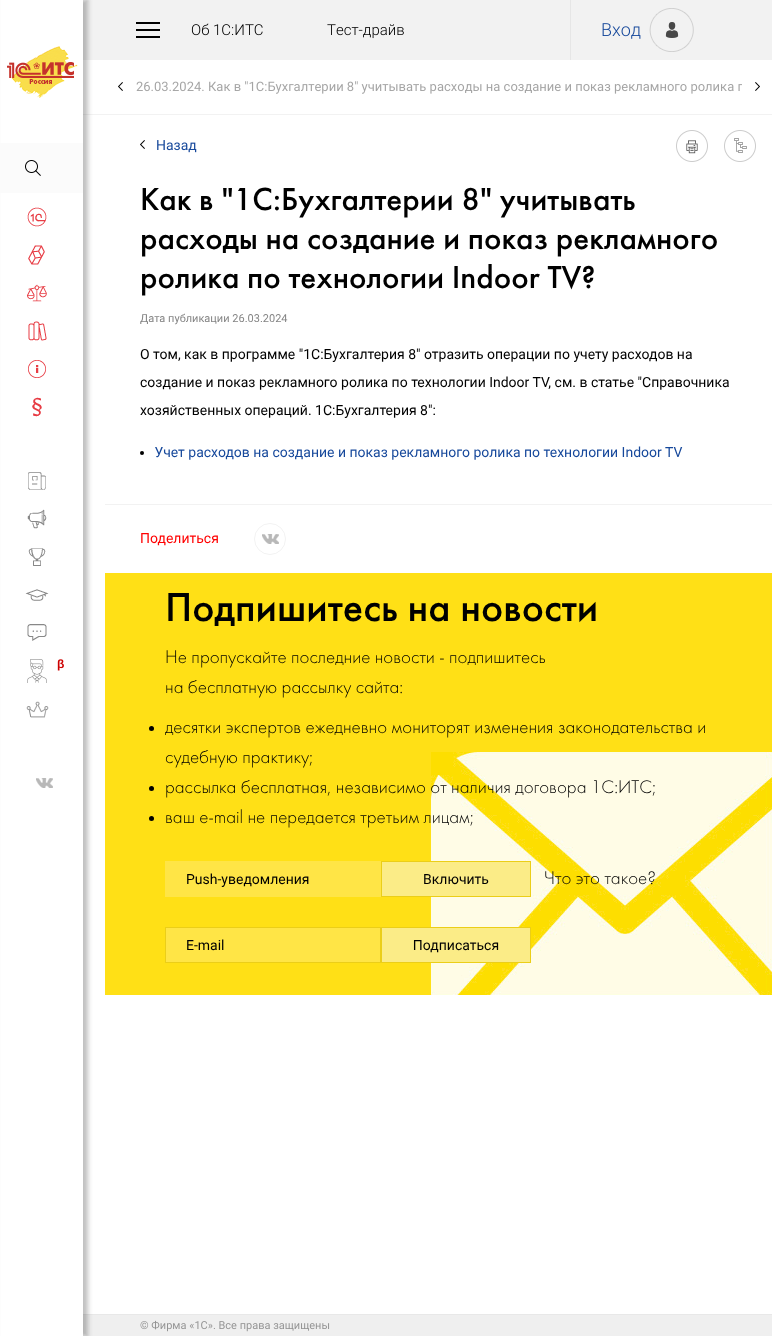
#include <cairo.h>
#include <math.h>
#include <stddef.h>


static void ink(cairo_t *ctx, unsigned color) {
    cairo_set_source_rgb(ctx, (color >> 16) / 255.0, (color >> 8 & 255) / 255.0, (color & 255) / 255.0);
}

static void round_path(cairo_t *ctx, double x, double y, double w, double h, double r) {
    cairo_new_sub_path(ctx);
    cairo_arc(ctx, x + w - r, y + h - r, r, 0, M_PI / 2);
    cairo_arc(ctx, x + r, y + h - r, r, M_PI / 2, M_PI);
    cairo_arc(ctx, x + r, y + r, r, M_PI, 1.5 * M_PI);
    cairo_arc(ctx, x + w - r, y + r, r, 1.5 * M_PI, 2 * M_PI);
    cairo_close_path(ctx);
}

static void blur_box(cairo_t *ctx, double x, double y, double w, double h, double r, double blur, double alpha) {
    cairo_push_group_with_content(ctx, CAIRO_CONTENT_ALPHA);
    cairo_set_operator(ctx, CAIRO_OPERATOR_SOURCE);
    for (int i = 15; i >= -15 && fmin(w, h) + blur * i / 3 > 0; i -= 2) {
        double e = blur * i / 6;
        cairo_set_source_rgba(ctx, 0, 0, 0, alpha * erfc((i - 1) / 8.5) / 2);
        round_path(ctx, x - e, y - e, w + 2 * e, h + 2 * e, fmax(0, fmin(r + e + blur * .6, fmin(w, h) / 2 + e)));
        cairo_fill(ctx);
    }
    cairo_pattern_t *soft = cairo_pop_group(ctx);
    cairo_mask(ctx, soft);
    cairo_pattern_destroy(soft);
}

static void paste(cairo_t *ctx, const char *path, double x, double y, double w, double h) {
    cairo_surface_t *image = cairo_image_surface_create_from_png(path);
    cairo_save(ctx);
    cairo_set_source_surface(ctx, image, x, y);
    cairo_rectangle(ctx, x, y, w, h);
    cairo_fill(ctx);
    cairo_restore(ctx);
    cairo_surface_destroy(image);
}

int main(void) {
    cairo_surface_t *surface = cairo_image_surface_create(CAIRO_FORMAT_RGB24, 772, 1336);
    cairo_t *ctx = cairo_create(surface);
    cairo_font_options_t *options = cairo_font_options_create();
    cairo_font_options_set_hint_metrics(options, CAIRO_HINT_METRICS_OFF);
    cairo_font_options_set_hint_style(options, CAIRO_HINT_STYLE_NONE);
    cairo_set_font_options(ctx, options);
    cairo_set_miter_limit(ctx, 4);
    ink(ctx, 0xFFFFFF);
    cairo_paint(ctx);
    ink(ctx, 0xF2F2F2);
    cairo_rectangle(ctx, 83, 0, 689, 60);
    cairo_fill(ctx);
    paste(ctx, "media/1.png", 136, 22, 24, 16);
    cairo_select_font_face(ctx, "Roboto Light", CAIRO_FONT_SLANT_NORMAL, CAIRO_FONT_WEIGHT_NORMAL);
    cairo_set_font_size(ctx, 15);
    ink(ctx, 0x000000);
    cairo_move_to(ctx, 191, 35);
    cairo_show_text(ctx, "Об 1С:ИТС");
    cairo_move_to(ctx, 327, 35);
    cairo_show_text(ctx, "Тест-драйв");
    ink(ctx, 0xE6E6E6);
    cairo_rectangle(ctx, 570, 0, 1, 60);
    cairo_fill(ctx);
    cairo_set_font_size(ctx, 18);
    ink(ctx, 0x16489B);
    cairo_move_to(ctx, 601, 36);
    cairo_show_text(ctx, "Вход");
    paste(ctx, "media/2.png", 649, 8, 45, 44);
    ink(ctx, 0xF2F2F2);
    cairo_rectangle(ctx, 82, 114, 690, 1);
    cairo_fill(ctx);
    paste(ctx, "media/3.png", 118, 82, 5, 9);
    cairo_select_font_face(ctx, "Roboto", CAIRO_FONT_SLANT_NORMAL, CAIRO_FONT_WEIGHT_NORMAL);
    cairo_set_font_size(ctx, 13);
    ink(ctx, 0xA4A4A4);
    cairo_move_to(ctx, 136, 91);
    cairo_show_text(ctx, "26.03.2024.");
    cairo_save(ctx);
    cairo_rectangle(ctx, 134, 60, 608, 53);
    cairo_clip(ctx);
    cairo_move_to(ctx, 208, 91);
    cairo_show_text(ctx, "Как в \"1С:Бухгалтерии 8\" учитывать расходы на создание и показ рекламного ролика п");
    cairo_restore(ctx);
    paste(ctx, "media/4.png", 755, 82, 5, 9);
    paste(ctx, "media/3.png", 140, 140, 5, 9);
    cairo_set_font_size(ctx, 14);
    ink(ctx, 0x16489B);
    cairo_move_to(ctx, 156, 150);
    cairo_show_text(ctx, "Назад");
    paste(ctx, "media/5.png", 686, 140, 12, 14);
    cairo_arc(ctx, 692, 146, 15.5, 0, 2 * M_PI);
    ink(ctx, 0xCCCCCC);
    cairo_set_line_width(ctx, 1);
    cairo_stroke(ctx);
    paste(ctx, "media/6.png", 734, 138, 13, 15);
    cairo_arc(ctx, 740, 146, 15.5, 0, 2 * M_PI);
    cairo_stroke(ctx);
    paste(ctx, "media/7.png", 105, 187, 667, 808);
    ink(ctx, 0xEFEFEF);
    cairo_rectangle(ctx, 83, 1315, 689, 21);
    cairo_fill(ctx);
    ink(ctx, 0xE8E8E8);
    cairo_rectangle(ctx, 82, 1314, 690, 1);
    cairo_fill(ctx);
    ink(ctx, 0x000000);
    blur_box(ctx, 5, 0, 83, 1336, 0, 2.5, 0.25);
    ink(ctx, 0xFFFFFF);
    cairo_rectangle(ctx, 1, 0, 82, 1336);
    cairo_fill(ctx);
    paste(ctx, "media/8.png", 7, 46, 71, 52);
    ink(ctx, 0xFBFBFB);
    cairo_rectangle(ctx, 0, 143, 83, 50);
    cairo_fill(ctx);
    paste(ctx, "media/9.png", 25, 160, 16, 16);
    paste(ctx, "media/10.png", 27, 207, 20, 20);
    paste(ctx, "media/11.png", 28, 245, 17, 20);
    paste(ctx, "media/12.png", 27, 284, 20, 18);
    paste(ctx, "media/13.png", 28, 321, 19, 20);
    paste(ctx, "media/14.png", 28, 360, 18, 18);
    paste(ctx, "media/15.png", 32, 397, 10, 20);
    paste(ctx, "media/16.png", 28, 472, 18, 18);
    paste(ctx, "media/17.png", 27, 509, 20, 20);
    paste(ctx, "media/18.png", 28, 548, 18, 18);
    paste(ctx, "media/19.png", 25, 589, 24, 12);
    paste(ctx, "media/20.png", 27, 624, 20, 17);
    paste(ctx, "media/21.png", 27, 659, 20, 24);
    cairo_select_font_face(ctx, "Liberation Sans", CAIRO_FONT_SLANT_NORMAL, CAIRO_FONT_WEIGHT_BOLD);
    cairo_set_font_size(ctx, 12);
    ink(ctx, 0xCC0000);
    cairo_move_to(ctx, 57, 668);
    cairo_show_text(ctx, "β");
    paste(ctx, "media/22.png", 26, 701, 23, 17);
    paste(ctx, "media/23.png", 36, 778, 17, 10);
    cairo_select_font_face(ctx, "Roboto", CAIRO_FONT_SLANT_NORMAL, CAIRO_FONT_WEIGHT_NORMAL);
    cairo_set_font_size(ctx, 11);
    ink(ctx, 0x939393);
    cairo_move_to(ctx, 140, 1329);
    cairo_show_text(ctx, "© Фирма «1С». Все права защищены");
    cairo_surface_write_to_png(surface, "image.png");
    cairo_font_options_destroy(options);
    cairo_destroy(ctx);
    cairo_surface_destroy(surface);
    return 0;
}
